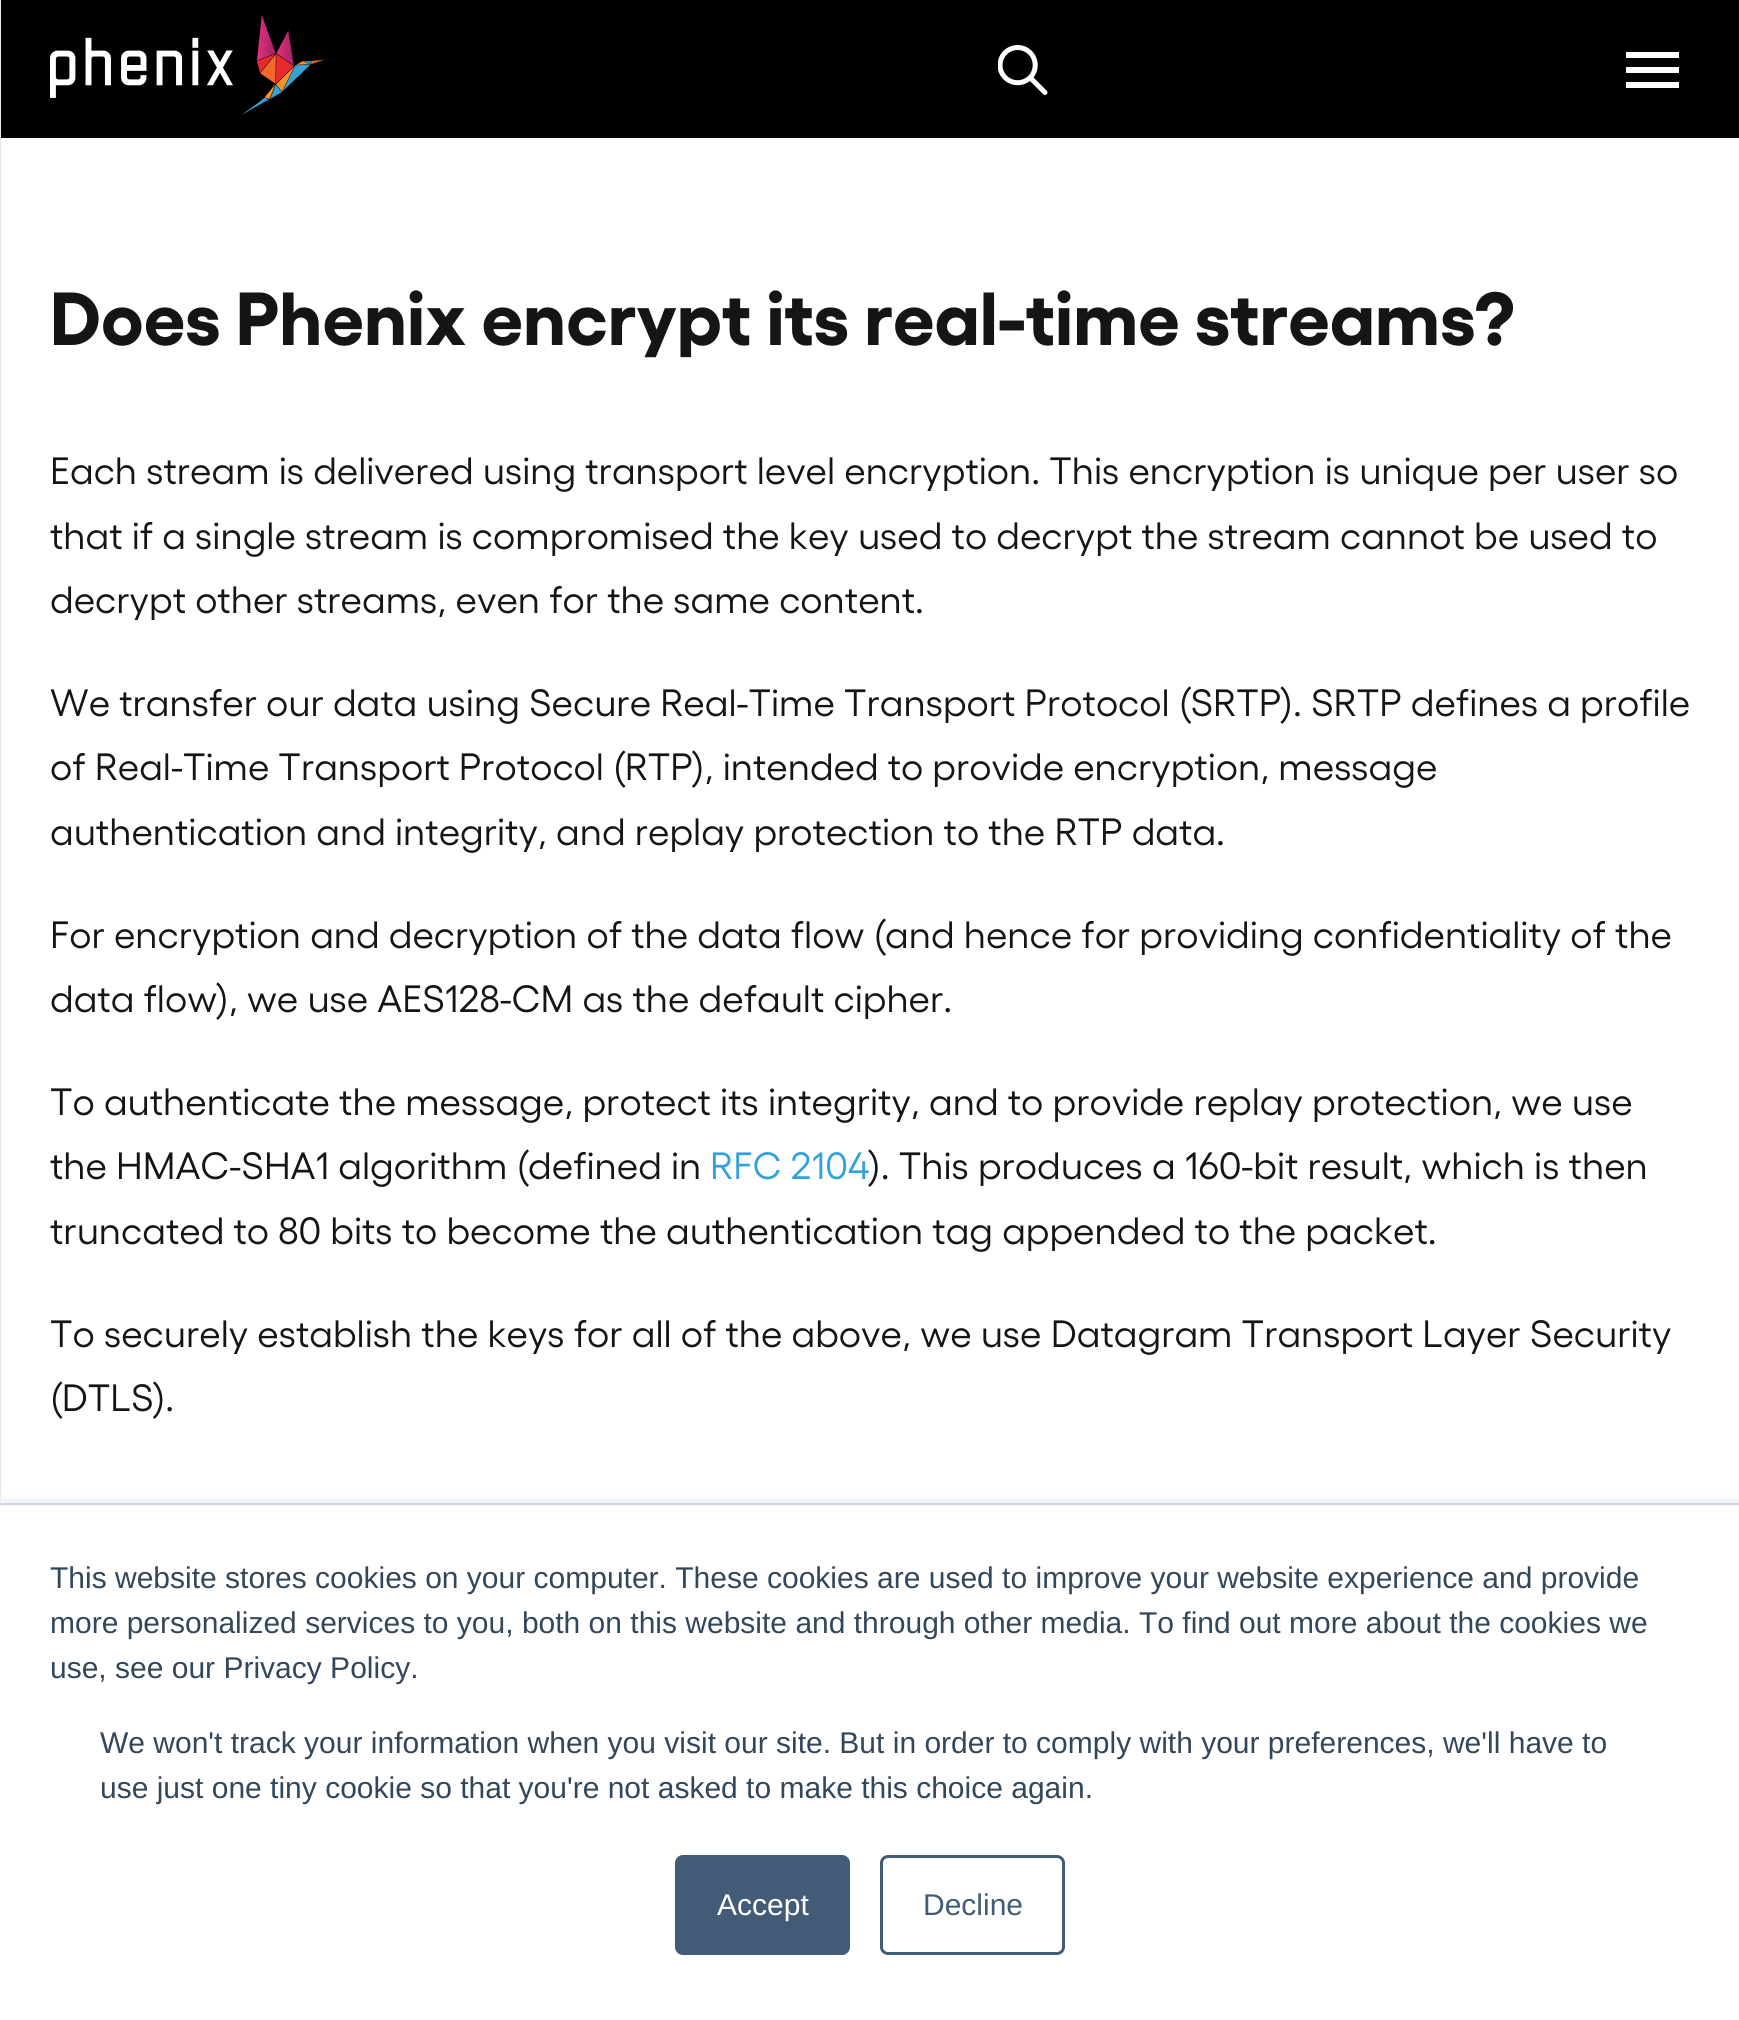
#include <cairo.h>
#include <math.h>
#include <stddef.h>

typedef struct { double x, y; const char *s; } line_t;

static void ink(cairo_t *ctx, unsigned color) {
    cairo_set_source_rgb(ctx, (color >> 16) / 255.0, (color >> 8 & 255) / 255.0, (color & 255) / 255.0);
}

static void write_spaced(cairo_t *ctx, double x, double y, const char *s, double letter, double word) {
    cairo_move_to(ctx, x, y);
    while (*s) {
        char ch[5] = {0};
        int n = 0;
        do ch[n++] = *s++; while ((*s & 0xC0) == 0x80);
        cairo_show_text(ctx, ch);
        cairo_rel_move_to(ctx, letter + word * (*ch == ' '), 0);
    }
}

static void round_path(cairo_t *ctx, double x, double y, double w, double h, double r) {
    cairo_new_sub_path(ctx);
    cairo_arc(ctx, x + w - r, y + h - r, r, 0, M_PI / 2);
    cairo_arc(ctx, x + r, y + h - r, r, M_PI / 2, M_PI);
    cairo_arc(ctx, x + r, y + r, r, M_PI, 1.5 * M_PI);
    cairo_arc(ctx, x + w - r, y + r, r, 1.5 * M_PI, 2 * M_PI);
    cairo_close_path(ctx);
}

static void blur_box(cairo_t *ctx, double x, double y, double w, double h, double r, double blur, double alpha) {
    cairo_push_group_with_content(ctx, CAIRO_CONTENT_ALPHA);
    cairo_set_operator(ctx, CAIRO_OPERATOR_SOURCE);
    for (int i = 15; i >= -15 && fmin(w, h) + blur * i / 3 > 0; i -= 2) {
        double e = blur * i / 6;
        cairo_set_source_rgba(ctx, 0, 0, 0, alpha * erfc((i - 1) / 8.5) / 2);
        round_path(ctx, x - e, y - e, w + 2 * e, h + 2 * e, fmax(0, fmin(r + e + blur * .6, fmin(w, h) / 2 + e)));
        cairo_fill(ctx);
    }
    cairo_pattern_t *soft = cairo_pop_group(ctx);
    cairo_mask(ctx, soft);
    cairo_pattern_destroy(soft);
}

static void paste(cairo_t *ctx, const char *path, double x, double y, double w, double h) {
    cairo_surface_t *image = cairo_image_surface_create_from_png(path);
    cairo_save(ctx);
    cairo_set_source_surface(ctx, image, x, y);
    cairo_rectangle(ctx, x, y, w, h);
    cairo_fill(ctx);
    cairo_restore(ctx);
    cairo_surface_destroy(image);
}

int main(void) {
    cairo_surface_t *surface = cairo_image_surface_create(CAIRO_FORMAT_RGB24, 1739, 2020);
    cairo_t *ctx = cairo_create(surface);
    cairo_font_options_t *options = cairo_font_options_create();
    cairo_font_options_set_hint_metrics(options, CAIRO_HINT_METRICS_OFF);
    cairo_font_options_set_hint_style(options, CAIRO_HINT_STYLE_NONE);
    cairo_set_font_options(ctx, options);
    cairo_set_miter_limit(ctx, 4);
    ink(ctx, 0xFFFFFF);
    cairo_paint(ctx);
    ink(ctx, 0x000000);
    cairo_rectangle(ctx, 1, 0, 1738, 138);
    cairo_fill(ctx);
    paste(ctx, "media/1.png", 50, 15, 274, 100);
    paste(ctx, "media/2.png", 998, 45, 50, 50);
    ink(ctx, 0xFFFFFF);
    cairo_new_path(ctx);
    cairo_move_to(ctx, 1626, 88);
    cairo_line_to(ctx, 1679, 88);
    cairo_line_to(ctx, 1679, 82);
    cairo_line_to(ctx, 1626, 82);
    cairo_close_path(ctx);
    cairo_move_to(ctx, 1626, 73);
    cairo_line_to(ctx, 1679, 73);
    cairo_line_to(ctx, 1679, 67);
    cairo_line_to(ctx, 1626, 67);
    cairo_close_path(ctx);
    cairo_move_to(ctx, 1626, 52);
    cairo_line_to(ctx, 1626, 58);
    cairo_line_to(ctx, 1679, 58);
    cairo_line_to(ctx, 1679, 52);
    cairo_close_path(ctx);
    cairo_fill(ctx);
    ink(ctx, 0xE5E9EA);
    cairo_rectangle(ctx, 0, 0, 1, 1503);
    cairo_fill(ctx);
    cairo_select_font_face(ctx, "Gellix", CAIRO_FONT_SLANT_NORMAL, CAIRO_FONT_WEIGHT_BOLD);
    cairo_set_font_size(ctx, 75);
    ink(ctx, 0x151515);
    cairo_move_to(ctx, 50, 345);
    cairo_show_text(ctx, "Does Phenix encrypt its real-time streams?");
    cairo_select_font_face(ctx, "Gellix", CAIRO_FONT_SLANT_NORMAL, CAIRO_FONT_WEIGHT_NORMAL);
    cairo_set_font_size(ctx, 38);
    {
        static const line_t items[] = {
            {50, 484, "Each stream is delivered using transport level encryption. This encryption is unique per user so"},
            {50, 549, "that if a single stream is compromised the key used to decrypt the stream cannot be used to"},
            {50, 613, "decrypt other streams, even for the same content."},
            {50, 716, "We transfer our data using Secure Real-Time Transport Protocol (SRTP). SRTP defines a profile"},
        };
        for (size_t i = 0; i < sizeof items / sizeof *items; i++) {
            cairo_move_to(ctx, items[i].x, items[i].y);
            cairo_show_text(ctx, items[i].s);
        }
    }
    write_spaced(ctx, 50, 780, "of Real-Time Transport Protocol (RTP), intended to provide encryption, message", 0, -0.1);
    {
        static const line_t items[] = {
            {50, 845, "authentication and integrity, and replay protection to the RTP data."},
            {50, 948, "For encryption and decryption of the data flow (and hence for providing confidentiality of the"},
            {50, 1012, "data flow), we use AES128-CM as the default cipher."},
            {50, 1115, "To authenticate the message, protect its integrity, and to provide replay protection, we use"},
            {50, 1179, "the HMAC-SHA1 algorithm (defined in"},
        };
        for (size_t i = 0; i < sizeof items / sizeof *items; i++) {
            cairo_move_to(ctx, items[i].x, items[i].y);
            cairo_show_text(ctx, items[i].s);
        }
    }
    ink(ctx, 0x32A2D9);
    cairo_move_to(ctx, 710, 1179);
    cairo_show_text(ctx, "RFC 2104");
    ink(ctx, 0x151515);
    {
        static const line_t items[] = {
            {869, 1179, "). This produces a 160-bit result, which is then"},
            {50, 1244, "truncated to 80 bits to become the authentication tag appended to the packet."},
            {50, 1347, "To securely establish the keys for all of the above, we use Datagram Transport Layer Security"},
            {50, 1411, "(DTLS)."},
        };
        for (size_t i = 0; i < sizeof items / sizeof *items; i++) {
            cairo_move_to(ctx, items[i].x, items[i].y);
            cairo_show_text(ctx, items[i].s);
        }
    }
    ink(ctx, 0xEAF0F6);
    blur_box(ctx, 0, 1500, 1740, 518, 0, 4, 1);
    ink(ctx, 0xCBD6E2);
    cairo_rectangle(ctx, 0, 1503, 1739, 2);
    cairo_fill(ctx);
    ink(ctx, 0xFFFFFF);
    cairo_rectangle(ctx, 0, 1505, 1739, 515);
    cairo_fill(ctx);
    cairo_select_font_face(ctx, "Liberation Sans", CAIRO_FONT_SLANT_NORMAL, CAIRO_FONT_WEIGHT_NORMAL);
    cairo_set_font_size(ctx, 30);
    ink(ctx, 0x33475B);
    {
        static const line_t items[] = {
            {50, 1588, "This website stores cookies on your computer. These cookies are used to improve your website experience and provide"},
            {50, 1633, "more personalized services to you, both on this website and through other media. To find out more about the cookies we"},
            {50, 1678, "use, see our Privacy Policy."},
            {100, 1753, "We won't track your information when you visit our site. But in order to comply with your preferences, we'll have to"},
            {100, 1798, "use just one tiny cookie so that you're not asked to make this choice again."},
        };
        for (size_t i = 0; i < sizeof items / sizeof *items; i++) {
            cairo_move_to(ctx, items[i].x, items[i].y);
            cairo_show_text(ctx, items[i].s);
        }
    }
    ink(ctx, 0x425B76);
    round_path(ctx, 676.5, 1856.5, 172, 97, 6.5);
    cairo_fill_preserve(ctx);
    cairo_set_line_width(ctx, 3);
    cairo_stroke(ctx);
    ink(ctx, 0xFFFFFF);
    cairo_move_to(ctx, 717, 1915);
    cairo_show_text(ctx, "Accept");
    round_path(ctx, 881.5, 1856.5, 182, 97, 6.5);
    ink(ctx, 0x425B76);
    cairo_stroke(ctx);
    cairo_move_to(ctx, 923, 1915);
    cairo_show_text(ctx, "Decline");
    cairo_surface_write_to_png(surface, "image.png");
    cairo_font_options_destroy(options);
    cairo_destroy(ctx);
    cairo_surface_destroy(surface);
    return 0;
}
